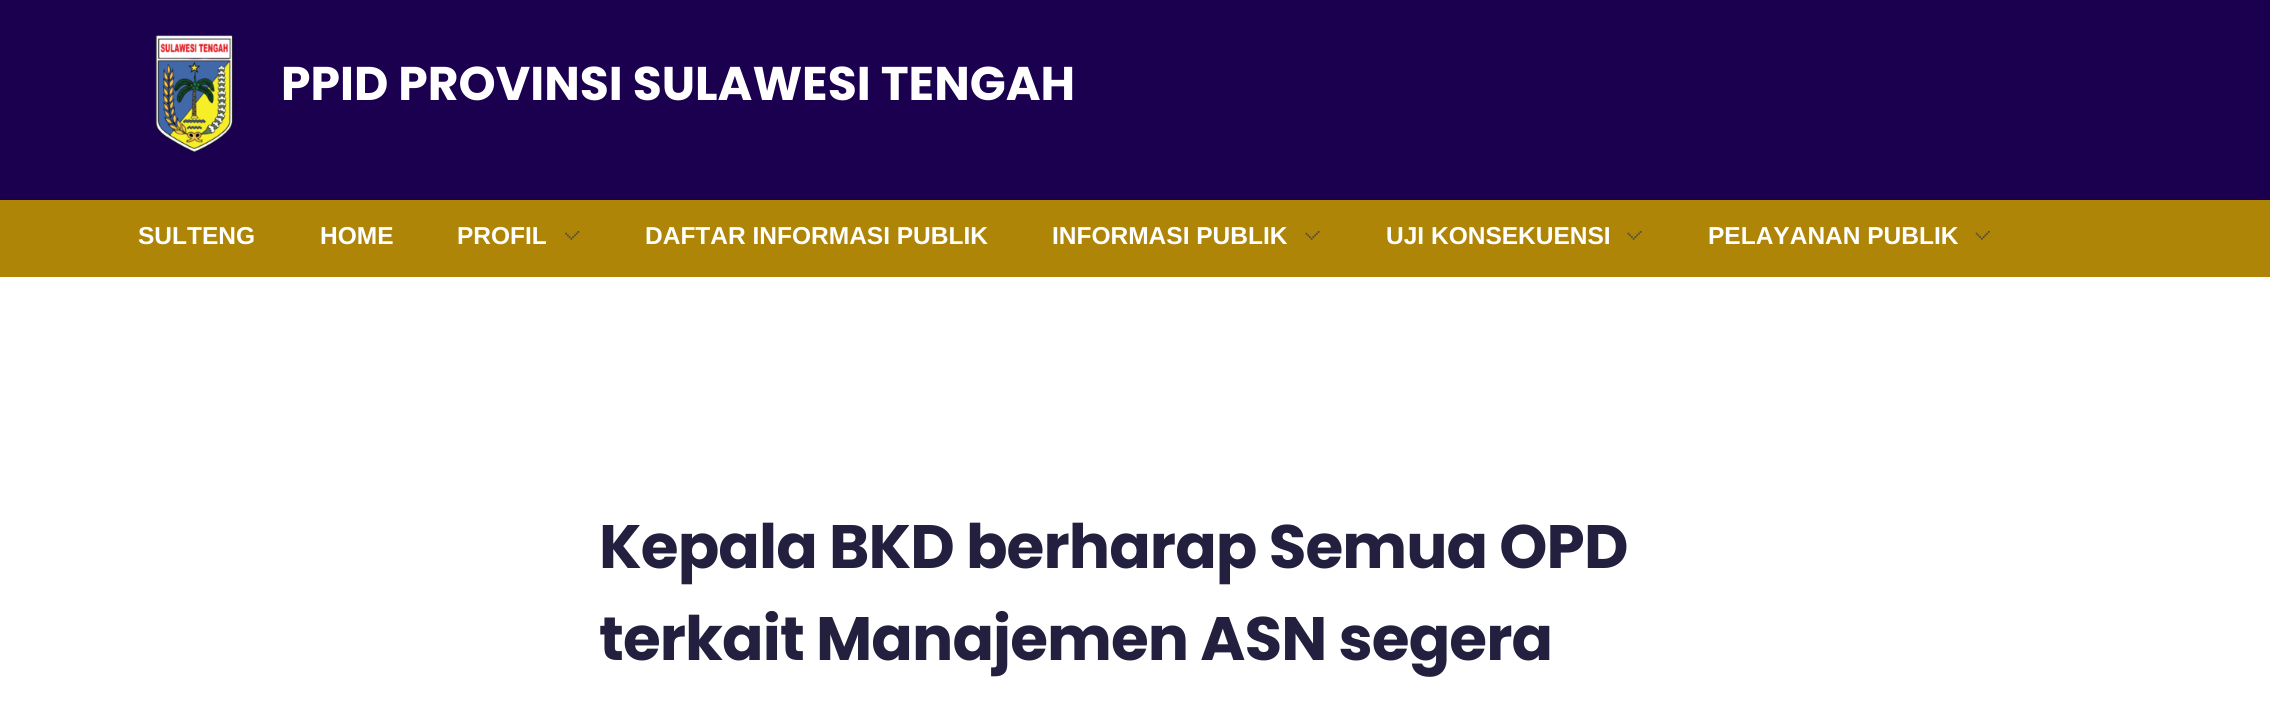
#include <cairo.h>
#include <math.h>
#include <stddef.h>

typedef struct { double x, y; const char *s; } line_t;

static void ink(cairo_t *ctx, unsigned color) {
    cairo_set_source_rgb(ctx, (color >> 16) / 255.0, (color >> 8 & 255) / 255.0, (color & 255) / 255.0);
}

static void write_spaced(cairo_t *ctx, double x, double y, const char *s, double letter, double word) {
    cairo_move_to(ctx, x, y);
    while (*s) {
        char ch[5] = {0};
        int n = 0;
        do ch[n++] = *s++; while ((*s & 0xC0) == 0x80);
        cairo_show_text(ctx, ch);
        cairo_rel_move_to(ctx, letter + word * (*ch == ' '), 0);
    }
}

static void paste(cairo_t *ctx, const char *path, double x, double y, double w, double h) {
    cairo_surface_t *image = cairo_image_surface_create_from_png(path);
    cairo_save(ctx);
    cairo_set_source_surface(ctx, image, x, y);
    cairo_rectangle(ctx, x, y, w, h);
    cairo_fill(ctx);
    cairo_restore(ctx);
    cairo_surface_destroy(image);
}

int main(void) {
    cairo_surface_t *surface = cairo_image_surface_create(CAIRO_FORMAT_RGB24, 2270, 724);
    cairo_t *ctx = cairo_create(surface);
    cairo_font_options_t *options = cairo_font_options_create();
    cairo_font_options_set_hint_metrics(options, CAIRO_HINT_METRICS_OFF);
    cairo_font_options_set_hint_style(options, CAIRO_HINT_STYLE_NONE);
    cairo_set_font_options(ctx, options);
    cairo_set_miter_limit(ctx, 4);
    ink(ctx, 0xFFFFFF);
    cairo_paint(ctx);
    ink(ctx, 0x1B004F);
    cairo_rectangle(ctx, 0, 0, 2270, 200);
    cairo_fill(ctx);
    paste(ctx, "media/1.png", 155, 35, 78, 118);
    cairo_select_font_face(ctx, "Poppins", CAIRO_FONT_SLANT_NORMAL, CAIRO_FONT_WEIGHT_BOLD);
    cairo_set_font_size(ctx, 47.25);
    ink(ctx, 0xFFFFFF);
    cairo_move_to(ctx, 281, 100);
    cairo_show_text(ctx, "PPID PROVINSI SULAWESI TENGAH");
    ink(ctx, 0xAF8507);
    cairo_rectangle(ctx, 0, 200, 2270, 77);
    cairo_fill(ctx);
    cairo_select_font_face(ctx, "Liberation Sans", CAIRO_FONT_SLANT_NORMAL, CAIRO_FONT_WEIGHT_BOLD);
    cairo_set_font_size(ctx, 24.5);
    ink(ctx, 0xFFFFFF);
    {
        static const line_t items[] = {
            {138, 244, "SULTENG"},
            {320, 244, "HOME"},
            {457, 244, "PROFIL"},
        };
        for (size_t i = 0; i < sizeof items / sizeof *items; i++) {
            cairo_move_to(ctx, items[i].x, items[i].y);
            cairo_show_text(ctx, items[i].s);
        }
    }
    paste(ctx, "media/2.png", 565, 231, 15, 9);
    cairo_move_to(ctx, 645, 244);
    cairo_show_text(ctx, "DAFTAR INFORMASI PUBLIK");
    cairo_move_to(ctx, 1052, 244);
    cairo_show_text(ctx, "INFORMASI PUBLIK");
    paste(ctx, "media/3.png", 1305, 231, 15, 9);
    cairo_move_to(ctx, 1386, 244);
    cairo_show_text(ctx, "UJI KONSEKUENSI");
    paste(ctx, "media/3.png", 1627, 231, 15, 9);
    cairo_move_to(ctx, 1708, 244);
    cairo_show_text(ctx, "PELAYANAN PUBLIK");
    paste(ctx, "media/4.png", 1975, 231, 15, 9);
    cairo_select_font_face(ctx, "Poppins", CAIRO_FONT_SLANT_NORMAL, CAIRO_FONT_WEIGHT_BOLD);
    cairo_set_font_size(ctx, 61.25);
    ink(ctx, 0x23203F);
    write_spaced(ctx, 599, 568, "Kepala BKD berharap Semua OPD", -0.9, 0);
    write_spaced(ctx, 599, 660, "terkait Manajemen ASN segera", -0.9, 0);
    cairo_surface_write_to_png(surface, "image.png");
    cairo_font_options_destroy(options);
    cairo_destroy(ctx);
    cairo_surface_destroy(surface);
    return 0;
}
